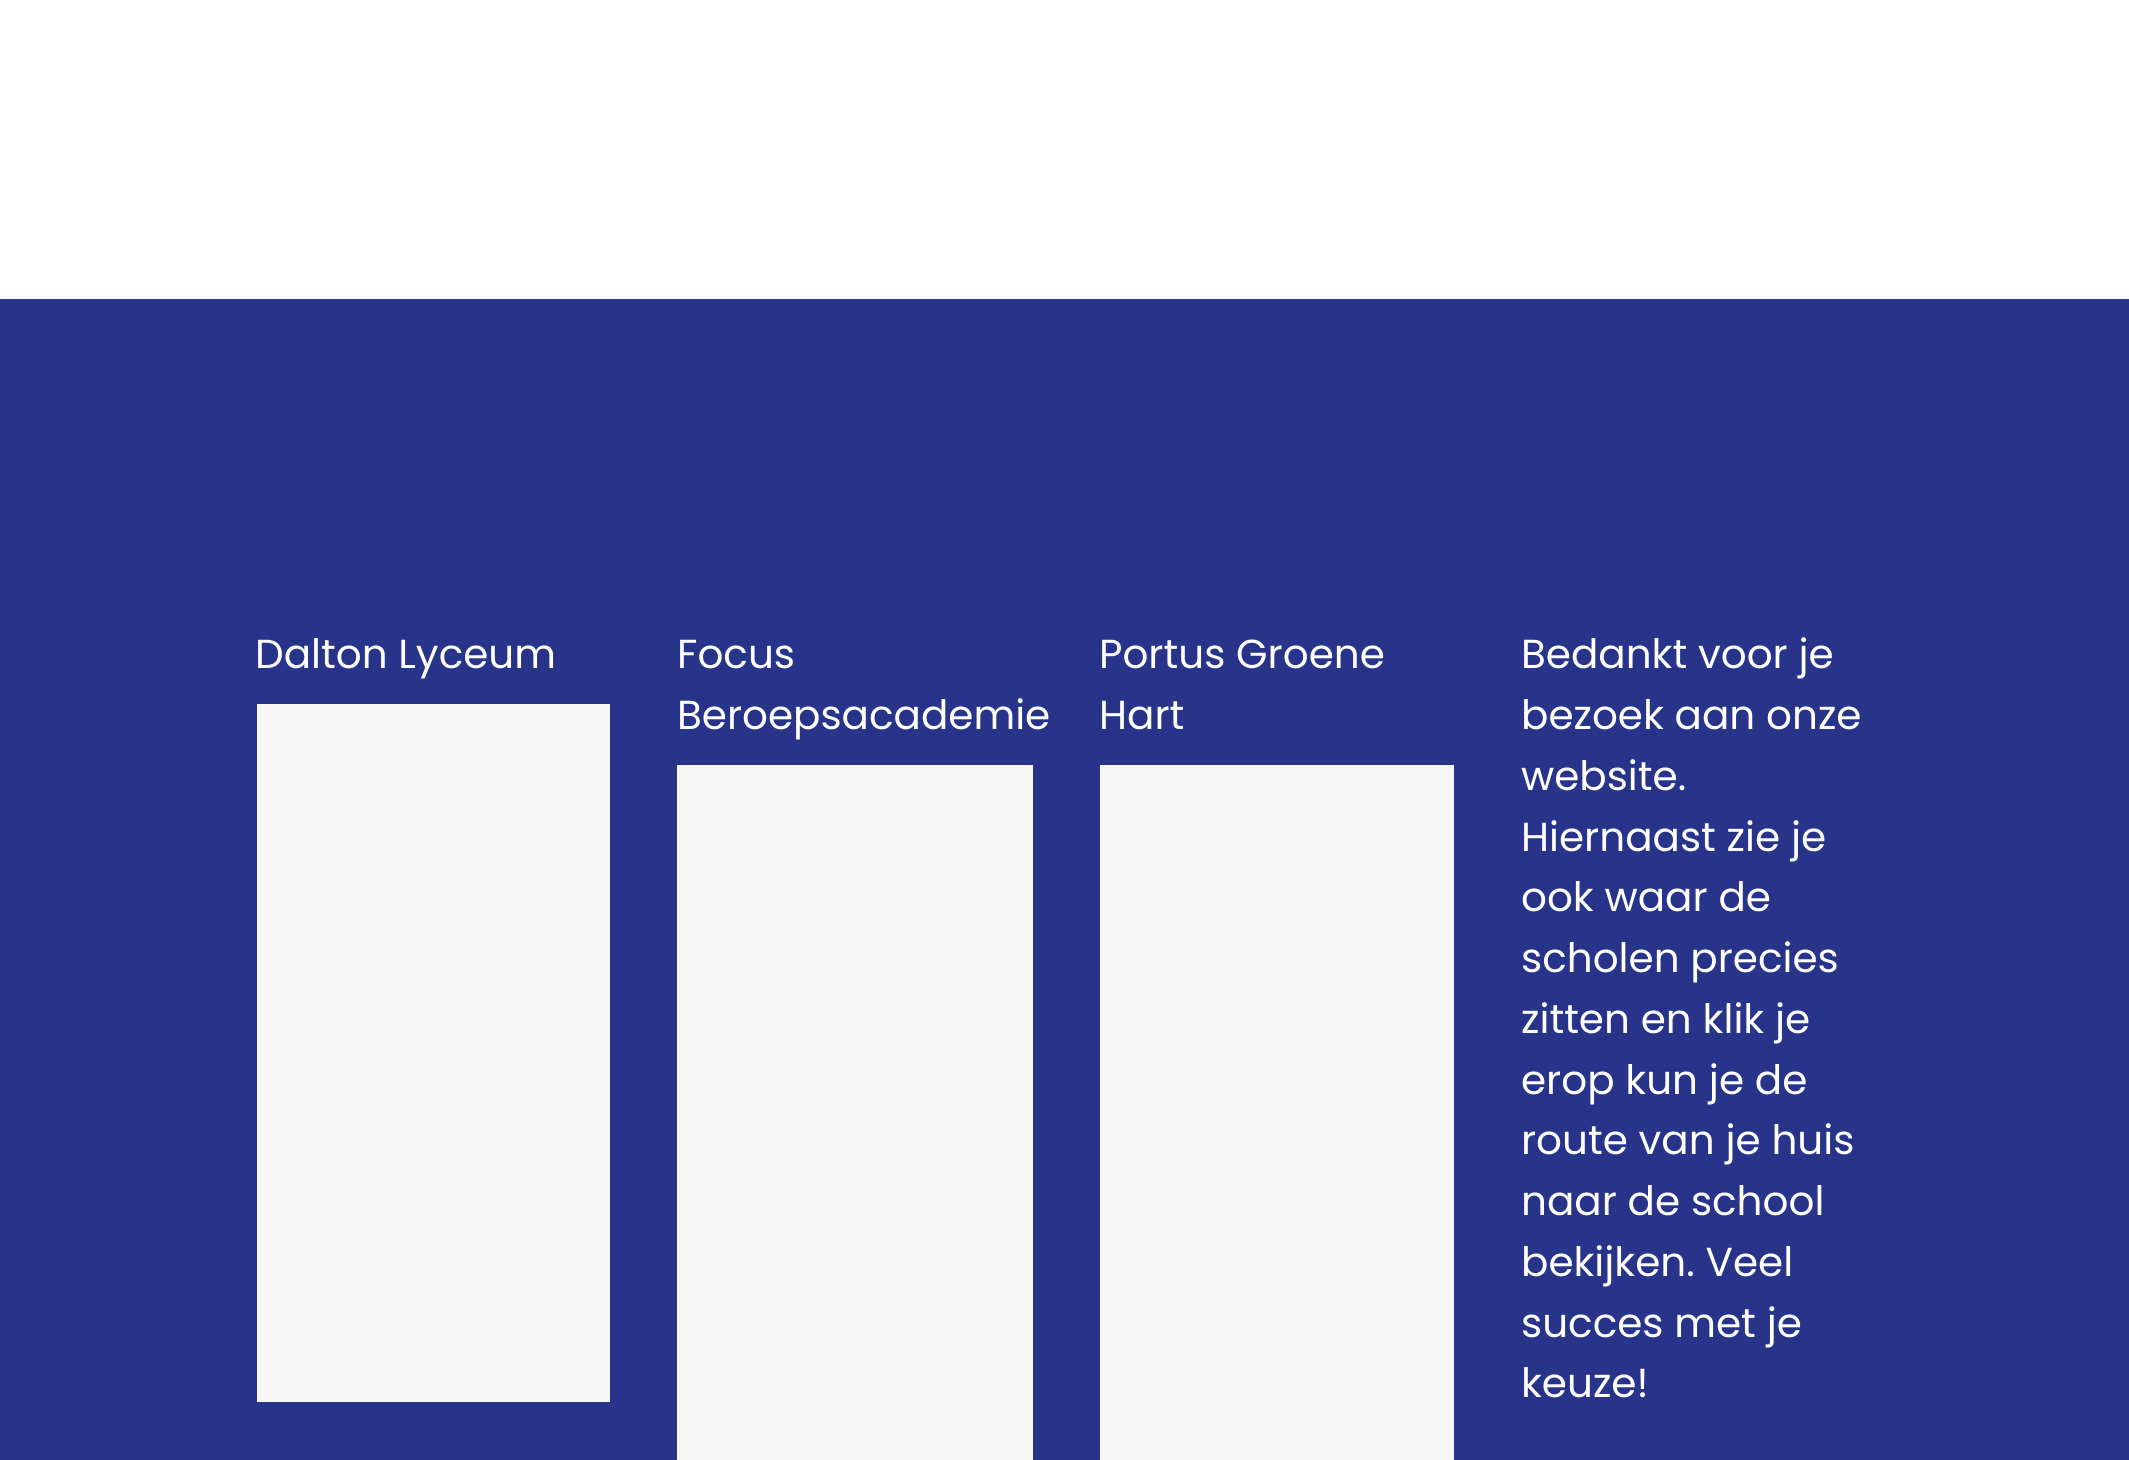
#include <cairo.h>
#include <math.h>
#include <stddef.h>

typedef struct { double x, y; const char *s; } line_t;

static void ink(cairo_t *ctx, unsigned color) {
    cairo_set_source_rgb(ctx, (color >> 16) / 255.0, (color >> 8 & 255) / 255.0, (color & 255) / 255.0);
}

int main(void) {
    cairo_surface_t *surface = cairo_image_surface_create(CAIRO_FORMAT_RGB24, 2129, 1460);
    cairo_t *ctx = cairo_create(surface);
    cairo_font_options_t *options = cairo_font_options_create();
    cairo_font_options_set_hint_metrics(options, CAIRO_HINT_METRICS_OFF);
    cairo_font_options_set_hint_style(options, CAIRO_HINT_STYLE_NONE);
    cairo_set_font_options(ctx, options);
    cairo_set_miter_limit(ctx, 4);
    ink(ctx, 0xFFFFFF);
    cairo_paint(ctx);
    ink(ctx, 0x27348A);
    cairo_rectangle(ctx, 0, 299, 2129, 1161);
    cairo_fill(ctx);
    cairo_select_font_face(ctx, "Poppins", CAIRO_FONT_SLANT_NORMAL, CAIRO_FONT_WEIGHT_NORMAL);
    cairo_set_font_size(ctx, 40.5);
    ink(ctx, 0xFFFFFF);
    cairo_move_to(ctx, 255, 668);
    cairo_show_text(ctx, "Dalton Lyceum");
    ink(ctx, 0xF7F7F7);
    cairo_rectangle(ctx, 257, 704, 353, 698);
    cairo_fill(ctx);
    ink(ctx, 0xFFFFFF);
    cairo_move_to(ctx, 677, 668);
    cairo_show_text(ctx, "Focus");
    cairo_move_to(ctx, 677, 729);
    cairo_show_text(ctx, "Beroepsacademie");
    ink(ctx, 0xF7F7F7);
    cairo_rectangle(ctx, 677, 765, 356, 695);
    cairo_fill(ctx);
    ink(ctx, 0xFFFFFF);
    cairo_move_to(ctx, 1099, 668);
    cairo_show_text(ctx, "Portus Groene");
    cairo_move_to(ctx, 1099, 729);
    cairo_show_text(ctx, "Hart");
    ink(ctx, 0xF7F7F7);
    cairo_rectangle(ctx, 1100, 765, 354, 695);
    cairo_fill(ctx);
    ink(ctx, 0xFFFFFF);
    {
        static const line_t items[] = {
            {1521, 668, "Bedankt voor je"},
            {1521, 729, "bezoek aan onze"},
            {1521, 790, "website."},
            {1521, 851, "Hiernaast zie je"},
            {1521, 911, "ook waar de"},
            {1521, 972, "scholen precies"},
            {1521, 1033, "zitten en klik je"},
            {1521, 1094, "erop kun je de"},
            {1521, 1154, "route van je huis"},
            {1521, 1215, "naar de school"},
            {1521, 1276, "bekijken. Veel"},
            {1521, 1337, "succes met je"},
            {1521, 1397, "keuze!"},
        };
        for (size_t i = 0; i < sizeof items / sizeof *items; i++) {
            cairo_move_to(ctx, items[i].x, items[i].y);
            cairo_show_text(ctx, items[i].s);
        }
    }
    cairo_surface_write_to_png(surface, "image.png");
    cairo_font_options_destroy(options);
    cairo_destroy(ctx);
    cairo_surface_destroy(surface);
    return 0;
}
